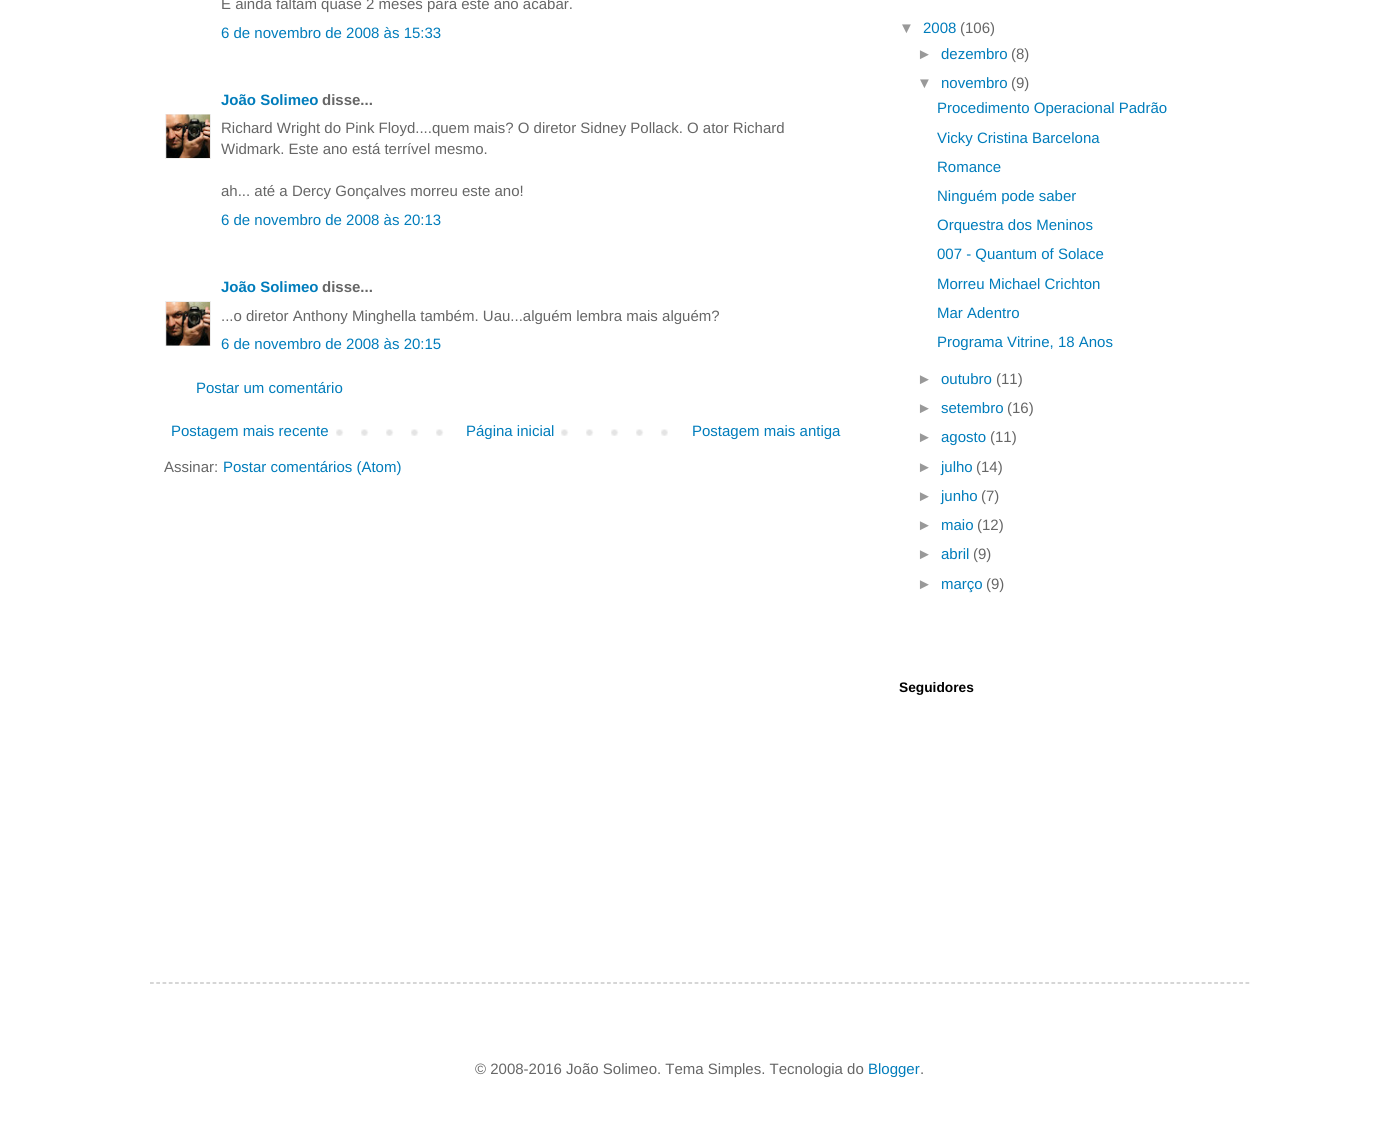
#include <cairo.h>
#include <math.h>
#include <stddef.h>

typedef struct { double x, y; const char *s; } line_t;

static void ink(cairo_t *ctx, unsigned color) {
    cairo_set_source_rgb(ctx, (color >> 16) / 255.0, (color >> 8 & 255) / 255.0, (color & 255) / 255.0);
}

static void paste(cairo_t *ctx, const char *path, double x, double y, double w, double h) {
    cairo_surface_t *image = cairo_image_surface_create_from_png(path);
    cairo_save(ctx);
    cairo_set_source_surface(ctx, image, x, y);
    cairo_rectangle(ctx, x, y, w, h);
    cairo_fill(ctx);
    cairo_restore(ctx);
    cairo_surface_destroy(image);
}

int main(void) {
    cairo_surface_t *surface = cairo_image_surface_create(CAIRO_FORMAT_RGB24, 1398, 1128);
    cairo_t *ctx = cairo_create(surface);
    cairo_font_options_t *options = cairo_font_options_create();
    cairo_font_options_set_hint_metrics(options, CAIRO_HINT_METRICS_OFF);
    cairo_font_options_set_hint_style(options, CAIRO_HINT_STYLE_NONE);
    cairo_set_font_options(ctx, options);
    cairo_set_miter_limit(ctx, 4);
    ink(ctx, 0xFFFFFF);
    cairo_paint(ctx);
    cairo_select_font_face(ctx, "Liberation Sans", CAIRO_FONT_SLANT_NORMAL, CAIRO_FONT_WEIGHT_NORMAL);
    cairo_set_font_size(ctx, 15);
    ink(ctx, 0x666666);
    cairo_move_to(ctx, 221, 9);
    cairo_show_text(ctx, "E ainda faltam quase 2 meses para este ano acabar.");
    ink(ctx, 0x007CBB);
    cairo_move_to(ctx, 221, 38);
    cairo_show_text(ctx, "6 de novembro de 2008 às 15:33");
    cairo_select_font_face(ctx, "Liberation Sans", CAIRO_FONT_SLANT_NORMAL, CAIRO_FONT_WEIGHT_BOLD);
    cairo_move_to(ctx, 221, 105);
    cairo_show_text(ctx, "João Solimeo");
    ink(ctx, 0x666666);
    cairo_move_to(ctx, 322, 105);
    cairo_show_text(ctx, "disse...");
    cairo_save(ctx);
    cairo_rectangle(ctx, 165, 114, 46, 45);
    cairo_clip(ctx);
    cairo_rectangle(ctx, 165.5, 114.5, 45, 45);
    ink(ctx, 0xEEEEEE);
    cairo_set_line_width(ctx, 1);
    cairo_stroke(ctx);
    cairo_restore(ctx);
    paste(ctx, "media/1.png", 166, 114, 44, 45);
    cairo_select_font_face(ctx, "Liberation Sans", CAIRO_FONT_SLANT_NORMAL, CAIRO_FONT_WEIGHT_NORMAL);
    {
        static const line_t items[] = {
            {221, 133, "Richard Wright do Pink Floyd....quem mais? O diretor Sidney Pollack. O ator Richard"},
            {221, 154, "Widmark. Este ano está terrível mesmo."},
            {221, 196, "ah... até a Dercy Gonçalves morreu este ano!"},
        };
        for (size_t i = 0; i < sizeof items / sizeof *items; i++) {
            cairo_move_to(ctx, items[i].x, items[i].y);
            cairo_show_text(ctx, items[i].s);
        }
    }
    ink(ctx, 0x007CBB);
    cairo_move_to(ctx, 221, 225);
    cairo_show_text(ctx, "6 de novembro de 2008 às 20:13");
    cairo_select_font_face(ctx, "Liberation Sans", CAIRO_FONT_SLANT_NORMAL, CAIRO_FONT_WEIGHT_BOLD);
    cairo_move_to(ctx, 221, 292);
    cairo_show_text(ctx, "João Solimeo");
    ink(ctx, 0x666666);
    cairo_move_to(ctx, 322, 292);
    cairo_show_text(ctx, "disse...");
    cairo_save(ctx);
    cairo_rectangle(ctx, 165, 301, 46, 45);
    cairo_clip(ctx);
    cairo_rectangle(ctx, 165.5, 301.5, 45, 46);
    ink(ctx, 0xEEEEEE);
    cairo_set_line_width(ctx, 1);
    cairo_stroke(ctx);
    cairo_restore(ctx);
    paste(ctx, "media/2.png", 166, 302, 44, 44);
    cairo_select_font_face(ctx, "Liberation Sans", CAIRO_FONT_SLANT_NORMAL, CAIRO_FONT_WEIGHT_NORMAL);
    cairo_move_to(ctx, 221, 321);
    cairo_show_text(ctx, "...o diretor Anthony Minghella também. Uau...alguém lembra mais alguém?");
    ink(ctx, 0x007CBB);
    cairo_move_to(ctx, 221, 349);
    cairo_show_text(ctx, "6 de novembro de 2008 às 20:15");
    cairo_move_to(ctx, 196, 393);
    cairo_show_text(ctx, "Postar um comentário");
    paste(ctx, "media/3.png", 336, 429, 332, 7);
    cairo_move_to(ctx, 171, 436);
    cairo_show_text(ctx, "Postagem mais recente");
    ink(ctx, 0xFFFFFF);
    cairo_rectangle(ctx, 461, 429, 83, 7);
    cairo_fill(ctx);
    ink(ctx, 0x007CBB);
    cairo_move_to(ctx, 466, 436);
    cairo_show_text(ctx, "Página inicial");
    cairo_move_to(ctx, 692, 436);
    cairo_show_text(ctx, "Postagem mais antiga");
    ink(ctx, 0x666666);
    cairo_move_to(ctx, 164, 472);
    cairo_show_text(ctx, "Assinar:");
    ink(ctx, 0x007CBB);
    cairo_move_to(ctx, 223, 472);
    cairo_show_text(ctx, "Postar comentários (Atom)");
    ink(ctx, 0x999999);
    cairo_move_to(ctx, 899, 33);
    cairo_show_text(ctx, "▼");
    ink(ctx, 0x007CBB);
    cairo_move_to(ctx, 923, 33);
    cairo_show_text(ctx, "2008");
    ink(ctx, 0x666666);
    cairo_move_to(ctx, 960, 33);
    cairo_show_text(ctx, "(106)");
    ink(ctx, 0x999999);
    cairo_move_to(ctx, 917, 59);
    cairo_show_text(ctx, "►");
    ink(ctx, 0x007CBB);
    cairo_move_to(ctx, 941, 59);
    cairo_show_text(ctx, "dezembro");
    ink(ctx, 0x666666);
    cairo_move_to(ctx, 1011, 59);
    cairo_show_text(ctx, "(8)");
    ink(ctx, 0x999999);
    cairo_move_to(ctx, 917, 88);
    cairo_show_text(ctx, "▼");
    ink(ctx, 0x007CBB);
    cairo_move_to(ctx, 941, 88);
    cairo_show_text(ctx, "novembro");
    ink(ctx, 0x666666);
    cairo_move_to(ctx, 1011, 88);
    cairo_show_text(ctx, "(9)");
    ink(ctx, 0x007CBB);
    {
        static const line_t items[] = {
            {937, 113, "Procedimento Operacional Padrão"},
            {937, 143, "Vicky Cristina Barcelona"},
            {937, 172, "Romance"},
            {937, 201, "Ninguém pode saber"},
            {937, 230, "Orquestra dos Meninos"},
            {937, 259, "007 - Quantum of Solace"},
            {937, 289, "Morreu Michael Crichton"},
            {937, 318, "Mar Adentro"},
            {937, 347, "Programa Vitrine, 18 Anos"},
        };
        for (size_t i = 0; i < sizeof items / sizeof *items; i++) {
            cairo_move_to(ctx, items[i].x, items[i].y);
            cairo_show_text(ctx, items[i].s);
        }
    }
    ink(ctx, 0x999999);
    cairo_move_to(ctx, 917, 384);
    cairo_show_text(ctx, "►");
    ink(ctx, 0x007CBB);
    cairo_move_to(ctx, 941, 384);
    cairo_show_text(ctx, "outubro");
    ink(ctx, 0x666666);
    cairo_move_to(ctx, 996, 384);
    cairo_show_text(ctx, "(11)");
    ink(ctx, 0x999999);
    cairo_move_to(ctx, 917, 413);
    cairo_show_text(ctx, "►");
    ink(ctx, 0x007CBB);
    cairo_move_to(ctx, 941, 413);
    cairo_show_text(ctx, "setembro");
    ink(ctx, 0x666666);
    cairo_move_to(ctx, 1007, 413);
    cairo_show_text(ctx, "(16)");
    ink(ctx, 0x999999);
    cairo_move_to(ctx, 917, 442);
    cairo_show_text(ctx, "►");
    ink(ctx, 0x007CBB);
    cairo_move_to(ctx, 941, 442);
    cairo_show_text(ctx, "agosto");
    ink(ctx, 0x666666);
    cairo_move_to(ctx, 990, 442);
    cairo_show_text(ctx, "(11)");
    ink(ctx, 0x999999);
    cairo_move_to(ctx, 917, 472);
    cairo_show_text(ctx, "►");
    ink(ctx, 0x007CBB);
    cairo_move_to(ctx, 941, 472);
    cairo_show_text(ctx, "julho");
    ink(ctx, 0x666666);
    cairo_move_to(ctx, 976, 472);
    cairo_show_text(ctx, "(14)");
    ink(ctx, 0x999999);
    cairo_move_to(ctx, 917, 501);
    cairo_show_text(ctx, "►");
    ink(ctx, 0x007CBB);
    cairo_move_to(ctx, 941, 501);
    cairo_show_text(ctx, "junho");
    ink(ctx, 0x666666);
    cairo_move_to(ctx, 981, 501);
    cairo_show_text(ctx, "(7)");
    ink(ctx, 0x999999);
    cairo_move_to(ctx, 917, 530);
    cairo_show_text(ctx, "►");
    ink(ctx, 0x007CBB);
    cairo_move_to(ctx, 941, 530);
    cairo_show_text(ctx, "maio");
    ink(ctx, 0x666666);
    cairo_move_to(ctx, 977, 530);
    cairo_show_text(ctx, "(12)");
    ink(ctx, 0x999999);
    cairo_move_to(ctx, 917, 559);
    cairo_show_text(ctx, "►");
    ink(ctx, 0x007CBB);
    cairo_move_to(ctx, 941, 559);
    cairo_show_text(ctx, "abril");
    ink(ctx, 0x666666);
    cairo_move_to(ctx, 973, 559);
    cairo_show_text(ctx, "(9)");
    ink(ctx, 0x999999);
    cairo_move_to(ctx, 917, 589);
    cairo_show_text(ctx, "►");
    ink(ctx, 0x007CBB);
    cairo_move_to(ctx, 941, 589);
    cairo_show_text(ctx, "março");
    ink(ctx, 0x666666);
    cairo_move_to(ctx, 986, 589);
    cairo_show_text(ctx, "(9)");
    cairo_select_font_face(ctx, "Liberation Sans", CAIRO_FONT_SLANT_NORMAL, CAIRO_FONT_WEIGHT_BOLD);
    cairo_set_font_size(ctx, 13.75);
    ink(ctx, 0x000000);
    cairo_move_to(ctx, 899, 692);
    cairo_show_text(ctx, "Seguidores");
    cairo_new_path(ctx);
    cairo_move_to(ctx, 150, 983);
    cairo_line_to(ctx, 1250, 983);
    ink(ctx, 0xBBBBBB);
    cairo_set_line_width(ctx, 1.2);
    cairo_set_dash(ctx, (double[]){3.75, 2.51}, 2, 0);
    cairo_stroke(ctx);
    cairo_select_font_face(ctx, "Liberation Sans", CAIRO_FONT_SLANT_NORMAL, CAIRO_FONT_WEIGHT_NORMAL);
    cairo_set_font_size(ctx, 15);
    ink(ctx, 0x666666);
    cairo_move_to(ctx, 475, 1074);
    cairo_show_text(ctx, "© 2008-2016 João Solimeo. Tema Simples. Tecnologia do");
    ink(ctx, 0x007CBB);
    cairo_move_to(ctx, 868, 1074);
    cairo_show_text(ctx, "Blogger");
    ink(ctx, 0x666666);
    cairo_move_to(ctx, 920, 1074);
    cairo_show_text(ctx, ".");
    cairo_surface_write_to_png(surface, "image.png");
    cairo_font_options_destroy(options);
    cairo_destroy(ctx);
    cairo_surface_destroy(surface);
    return 0;
}
